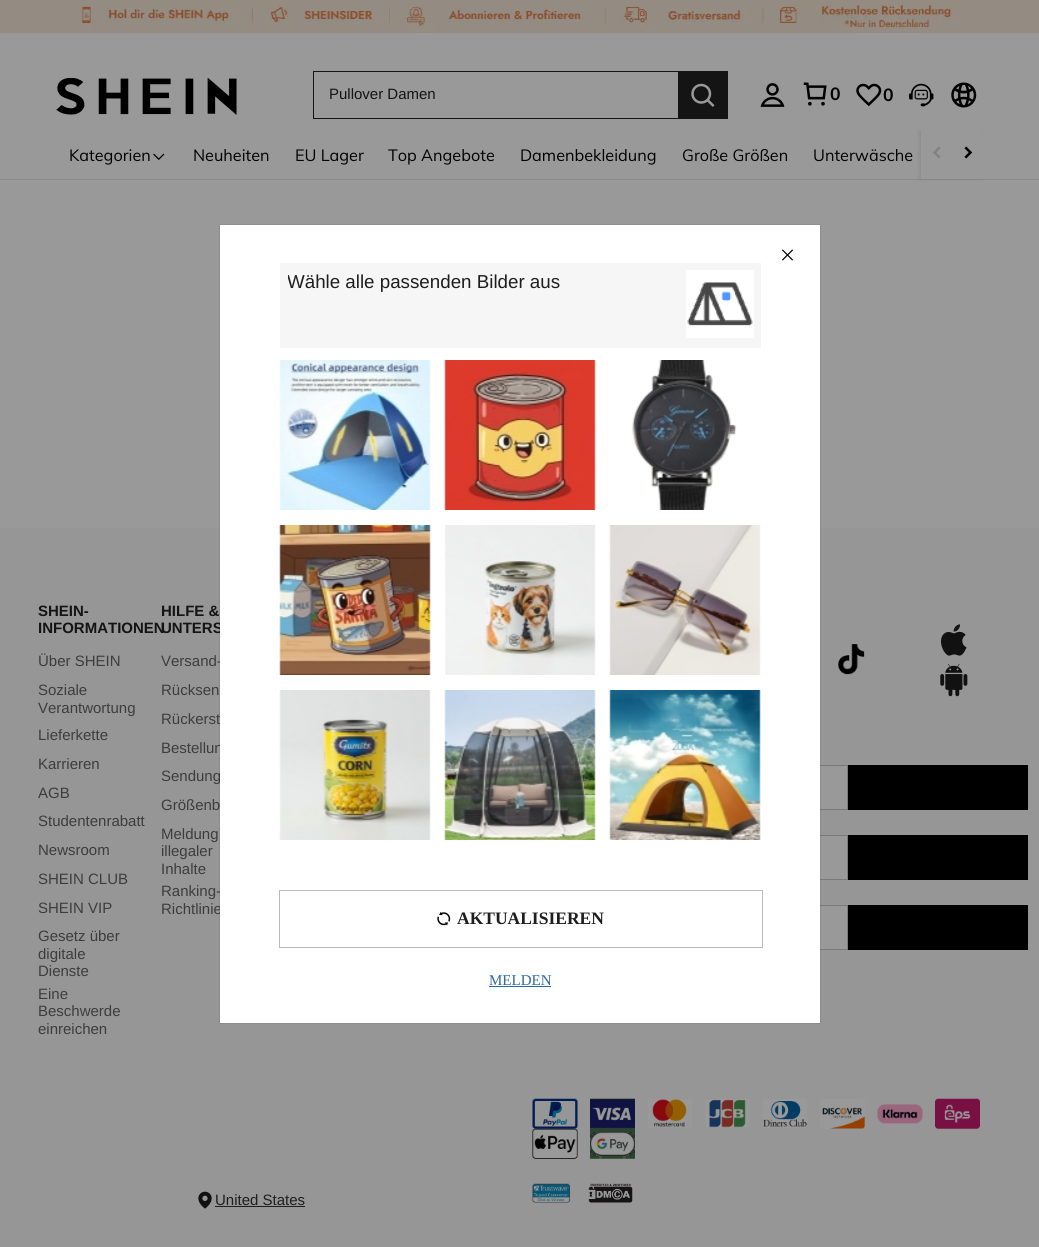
#include <cairo.h>
#include <math.h>
#include <stddef.h>

typedef struct { double x, y; const char *s; } line_t;
typedef struct { double x, y, w, h; unsigned color; } box_t;

static void ink(cairo_t *ctx, unsigned color) {
    cairo_set_source_rgb(ctx, (color >> 16) / 255.0, (color >> 8 & 255) / 255.0, (color & 255) / 255.0);
}

static void round_path(cairo_t *ctx, double x, double y, double w, double h, double r) {
    cairo_new_sub_path(ctx);
    cairo_arc(ctx, x + w - r, y + h - r, r, 0, M_PI / 2);
    cairo_arc(ctx, x + r, y + h - r, r, M_PI / 2, M_PI);
    cairo_arc(ctx, x + r, y + r, r, M_PI, 1.5 * M_PI);
    cairo_arc(ctx, x + w - r, y + r, r, 1.5 * M_PI, 2 * M_PI);
    cairo_close_path(ctx);
}

static void blur_box(cairo_t *ctx, double x, double y, double w, double h, double r, double blur, double alpha) {
    cairo_push_group_with_content(ctx, CAIRO_CONTENT_ALPHA);
    cairo_set_operator(ctx, CAIRO_OPERATOR_SOURCE);
    for (int i = 15; i >= -15 && fmin(w, h) + blur * i / 3 > 0; i -= 2) {
        double e = blur * i / 6;
        cairo_set_source_rgba(ctx, 0, 0, 0, alpha * erfc((i - 1) / 8.5) / 2);
        round_path(ctx, x - e, y - e, w + 2 * e, h + 2 * e, fmax(0, fmin(r + e + blur * .6, fmin(w, h) / 2 + e)));
        cairo_fill(ctx);
    }
    cairo_pattern_t *soft = cairo_pop_group(ctx);
    cairo_mask(ctx, soft);
    cairo_pattern_destroy(soft);
}

static void paste(cairo_t *ctx, const char *path, double x, double y, double w, double h) {
    cairo_surface_t *image = cairo_image_surface_create_from_png(path);
    cairo_save(ctx);
    cairo_set_source_surface(ctx, image, x, y);
    cairo_rectangle(ctx, x, y, w, h);
    cairo_fill(ctx);
    cairo_restore(ctx);
    cairo_surface_destroy(image);
}

int main(void) {
    cairo_surface_t *surface = cairo_image_surface_create(CAIRO_FORMAT_RGB24, 1039, 1247);
    cairo_t *ctx = cairo_create(surface);
    cairo_font_options_t *options = cairo_font_options_create();
    cairo_font_options_set_hint_metrics(options, CAIRO_HINT_METRICS_OFF);
    cairo_font_options_set_hint_style(options, CAIRO_HINT_STYLE_NONE);
    cairo_set_font_options(ctx, options);
    cairo_set_miter_limit(ctx, 4);
    ink(ctx, 0x999999);
    cairo_paint(ctx);
    paste(ctx, "media/1.png", 0, 0, 1039, 33);
    ink(ctx, 0x898989);
    cairo_rectangle(ctx, 0, 179, 1039, 1);
    cairo_fill(ctx);
    ink(ctx, 0x000000);
    blur_box(ctx, 919, 130, 62, 49, 0, 2, 0.08);
    ink(ctx, 0x999999);
    cairo_rectangle(ctx, 919, 128, 62, 2);
    cairo_fill(ctx);
    paste(ctx, "media/2.png", 56, 78, 181, 37);
    {
        static const box_t items[] = {
            {313, 71, 365, 1, 0x141414},
            {313, 118, 365, 1, 0x141414},
            {313, 71, 1, 48, 0x141414},
        };
        for (size_t i = 0; i < sizeof items / sizeof *items; i++) {
            ink(ctx, items[i].color);
            cairo_rectangle(ctx, items[i].x, items[i].y, items[i].w, items[i].h);
            cairo_fill(ctx);
        }
    }
    cairo_select_font_face(ctx, "Liberation Sans", CAIRO_FONT_SLANT_NORMAL, CAIRO_FONT_WEIGHT_NORMAL);
    cairo_set_font_size(ctx, 15);
    cairo_move_to(ctx, 329, 99);
    cairo_show_text(ctx, "Pullover Damen");
    cairo_rectangle(ctx, 678, 71, 50, 48);
    cairo_fill(ctx);
    paste(ctx, "media/3.png", 691, 83, 24, 24);
    paste(ctx, "media/4.png", 760, 83, 25, 24);
    paste(ctx, "media/5.png", 803, 82, 24, 24);
    cairo_select_font_face(ctx, "Muli", CAIRO_FONT_SLANT_NORMAL, CAIRO_FONT_WEIGHT_BOLD);
    cairo_set_font_size(ctx, 17.5);
    ink(ctx, 0x000000);
    cairo_move_to(ctx, 830, 100);
    cairo_show_text(ctx, "0");
    paste(ctx, "media/6.png", 856, 83, 26, 24);
    cairo_move_to(ctx, 883, 101);
    cairo_show_text(ctx, "0");
    paste(ctx, "media/7.png", 909, 83, 25, 24);
    paste(ctx, "media/8.png", 951, 82, 26, 26);
    cairo_select_font_face(ctx, "Muli", CAIRO_FONT_SLANT_NORMAL, CAIRO_FONT_WEIGHT_NORMAL);
    cairo_set_font_size(ctx, 16.25);
    cairo_move_to(ctx, 69, 161);
    cairo_show_text(ctx, "Kategorien");
    paste(ctx, "media/9.png", 153, 153, 12, 7);
    {
        static const line_t items[] = {
            {193, 161, "Neuheiten"},
            {295, 161, "EU Lager"},
            {388, 161, "Top Angebote"},
            {520, 161, "Damenbekleidung"},
            {682, 161, "Große Größen"},
            {813, 161, "Unterwäsche"},
        };
        for (size_t i = 0; i < sizeof items / sizeof *items; i++) {
            cairo_move_to(ctx, items[i].x, items[i].y);
            cairo_show_text(ctx, items[i].s);
        }
    }
    ink(ctx, 0x999999);
    cairo_rectangle(ctx, 921, 130, 62, 49);
    cairo_fill(ctx);
    paste(ctx, "media/10.png", 933, 146, 8, 13);
    paste(ctx, "media/11.png", 964, 146, 9, 13);
    ink(ctx, 0x969696);
    cairo_rectangle(ctx, 0, 528, 1039, 719);
    cairo_fill(ctx);
    cairo_select_font_face(ctx, "Liberation Sans", CAIRO_FONT_SLANT_NORMAL, CAIRO_FONT_WEIGHT_BOLD);
    cairo_set_font_size(ctx, 15);
    ink(ctx, 0x141414);
    cairo_move_to(ctx, 38, 616);
    cairo_show_text(ctx, "SHEIN-");
    cairo_move_to(ctx, 38, 633);
    cairo_show_text(ctx, "INFORMATIONEN");
    cairo_select_font_face(ctx, "Liberation Sans", CAIRO_FONT_SLANT_NORMAL, CAIRO_FONT_WEIGHT_NORMAL);
    ink(ctx, 0x3D3D3D);
    {
        static const line_t items[] = {
            {38, 666, "Über SHEIN"},
            {38, 695, "Soziale"},
            {38, 713, "Verantwortung"},
            {38, 740, "Lieferkette"},
            {38, 769, "Karrieren"},
            {38, 798, "AGB"},
            {38, 826, "Studentenrabatt"},
            {38, 855, "Newsroom"},
            {38, 884, "SHEIN CLUB"},
            {38, 913, "SHEIN VIP"},
            {38, 941, "Gesetz über"},
            {38, 959, "digitale"},
            {38, 976, "Dienste"},
            {38, 999, "Eine"},
            {38, 1016, "Beschwerde"},
            {38, 1034, "einreichen"},
        };
        for (size_t i = 0; i < sizeof items / sizeof *items; i++) {
            cairo_move_to(ctx, items[i].x, items[i].y);
            cairo_show_text(ctx, items[i].s);
        }
    }
    cairo_select_font_face(ctx, "Liberation Sans", CAIRO_FONT_SLANT_NORMAL, CAIRO_FONT_WEIGHT_BOLD);
    ink(ctx, 0x141414);
    cairo_move_to(ctx, 161, 616);
    cairo_show_text(ctx, "HILFE &");
    cairo_move_to(ctx, 161, 633);
    cairo_show_text(ctx, "UNTERS");
    cairo_select_font_face(ctx, "Liberation Sans", CAIRO_FONT_SLANT_NORMAL, CAIRO_FONT_WEIGHT_NORMAL);
    ink(ctx, 0x3D3D3D);
    {
        static const line_t items[] = {
            {161, 666, "Versand-"},
            {161, 695, "Rücksen"},
            {161, 724, "Rückerst"},
            {161, 753, "Bestellun"},
            {161, 781, "Sendung"},
            {161, 810, "Größenb"},
            {161, 839, "Meldung"},
            {161, 856, "illegaler"},
            {161, 874, "Inhalte"},
            {161, 896, "Ranking-"},
            {161, 914, "Richtlinie"},
        };
        for (size_t i = 0; i < sizeof items / sizeof *items; i++) {
            cairo_move_to(ctx, items[i].x, items[i].y);
            cairo_show_text(ctx, items[i].s);
        }
    }
    paste(ctx, "media/12.png", 838, 644, 27, 31);
    paste(ctx, "media/13.png", 941, 624, 26, 32);
    paste(ctx, "media/14.png", 940, 663, 28, 34);
    ink(ctx, 0x999999);
    cairo_rectangle(ctx, 820, 766, 27, 43);
    cairo_fill(ctx);
    cairo_rectangle(ctx, 533.5, 765.5, 314, 44);
    ink(ctx, 0x7A7A7A);
    cairo_set_line_width(ctx, 1);
    cairo_stroke(ctx);
    ink(ctx, 0x000000);
    cairo_rectangle(ctx, 848, 765, 180, 45);
    cairo_fill(ctx);
    ink(ctx, 0x999999);
    cairo_rectangle(ctx, 820, 836, 27, 43);
    cairo_fill(ctx);
    cairo_rectangle(ctx, 633.5, 835.5, 214, 44);
    ink(ctx, 0x7A7A7A);
    cairo_stroke(ctx);
    ink(ctx, 0x000000);
    cairo_rectangle(ctx, 848, 835, 180, 45);
    cairo_fill(ctx);
    ink(ctx, 0x999999);
    cairo_rectangle(ctx, 820, 906, 27, 43);
    cairo_fill(ctx);
    cairo_rectangle(ctx, 633.5, 905.5, 214, 44);
    ink(ctx, 0x7A7A7A);
    cairo_stroke(ctx);
    ink(ctx, 0x000000);
    cairo_rectangle(ctx, 848, 905, 180, 45);
    cairo_fill(ctx);
    paste(ctx, "media/15.png", 532, 1098, 46, 31);
    paste(ctx, "media/16.png", 590, 1098, 45, 31);
    paste(ctx, "media/17.png", 648, 1099, 44, 29);
    paste(ctx, "media/18.png", 705, 1099, 45, 29);
    paste(ctx, "media/19.png", 763, 1099, 44, 29);
    paste(ctx, "media/20.png", 820, 1099, 45, 30);
    paste(ctx, "media/21.png", 877, 1104, 46, 20);
    paste(ctx, "media/22.png", 935, 1098, 45, 31);
    paste(ctx, "media/23.png", 532, 1128, 46, 31);
    paste(ctx, "media/24.png", 590, 1128, 45, 31);
    paste(ctx, "media/25.png", 198, 1191, 14, 18);
    ink(ctx, 0x1E1E1E);
    cairo_move_to(ctx, 215, 1205);
    cairo_show_text(ctx, "United States");
    cairo_rectangle(ctx, 215, 1206, 90, 1);
    cairo_fill(ctx);
    paste(ctx, "media/26.png", 532, 1183, 38, 20);
    paste(ctx, "media/27.png", 588, 1183, 45, 20);
    ink(ctx, 0x000000);
    blur_box(ctx, 220, 225, 600, 798, 0, 0.5, 0.3);
    ink(ctx, 0xFFFFFF);
    cairo_rectangle(ctx, 220, 225, 600, 798);
    cairo_fill(ctx);
    paste(ctx, "media/28.png", 782, 249, 11, 12);
    ink(ctx, 0xF6F6F6);
    cairo_rectangle(ctx, 280, 263, 481, 85);
    cairo_fill(ctx);
    cairo_save(ctx);
    cairo_rectangle(ctx, 288, 270, 375, 70);
    cairo_clip(ctx);
    cairo_set_font_size(ctx, 18.75);
    ink(ctx, 0x1E1E1E);
    cairo_move_to(ctx, 287, 288);
    cairo_show_text(ctx, "Wähle alle passenden Bilder aus");
    cairo_restore(ctx);
    ink(ctx, 0xFFFFFF);
    cairo_rectangle(ctx, 686, 270, 68, 68);
    cairo_fill(ctx);
    paste(ctx, "media/29.png", 687, 282, 66, 44);
    paste(ctx, "media/30.png", 279, 360, 152, 150);
    paste(ctx, "media/31.png", 444, 360, 152, 150);
    paste(ctx, "media/32.png", 631, 360, 106, 150);
    paste(ctx, "media/33.png", 279, 525, 152, 150);
    paste(ctx, "media/34.png", 445, 525, 151, 150);
    paste(ctx, "media/35.png", 609, 525, 152, 150);
    paste(ctx, "media/36.png", 279, 690, 152, 150);
    paste(ctx, "media/37.png", 444, 690, 152, 150);
    paste(ctx, "media/38.png", 609, 690, 152, 150);
    cairo_rectangle(ctx, 279.5, 890.5, 483, 57);
    ink(ctx, 0xBBBBBB);
    cairo_stroke(ctx);
    paste(ctx, "media/39.png", 437, 911, 14, 15);
    cairo_select_font_face(ctx, "Liberation Serif", CAIRO_FONT_SLANT_NORMAL, CAIRO_FONT_WEIGHT_BOLD);
    cairo_set_font_size(ctx, 17.5);
    ink(ctx, 0x1E1E1E);
    cairo_move_to(ctx, 457, 924);
    cairo_show_text(ctx, "AKTUALISIEREN");
    cairo_select_font_face(ctx, "Liberation Serif", CAIRO_FONT_SLANT_NORMAL, CAIRO_FONT_WEIGHT_NORMAL);
    cairo_set_font_size(ctx, 15);
    ink(ctx, 0x2D68A8);
    cairo_move_to(ctx, 489, 985);
    cairo_show_text(ctx, "MELDEN");
    cairo_rectangle(ctx, 489, 986, 62, 1);
    cairo_fill(ctx);
    cairo_surface_write_to_png(surface, "image.png");
    cairo_font_options_destroy(options);
    cairo_destroy(ctx);
    cairo_surface_destroy(surface);
    return 0;
}
